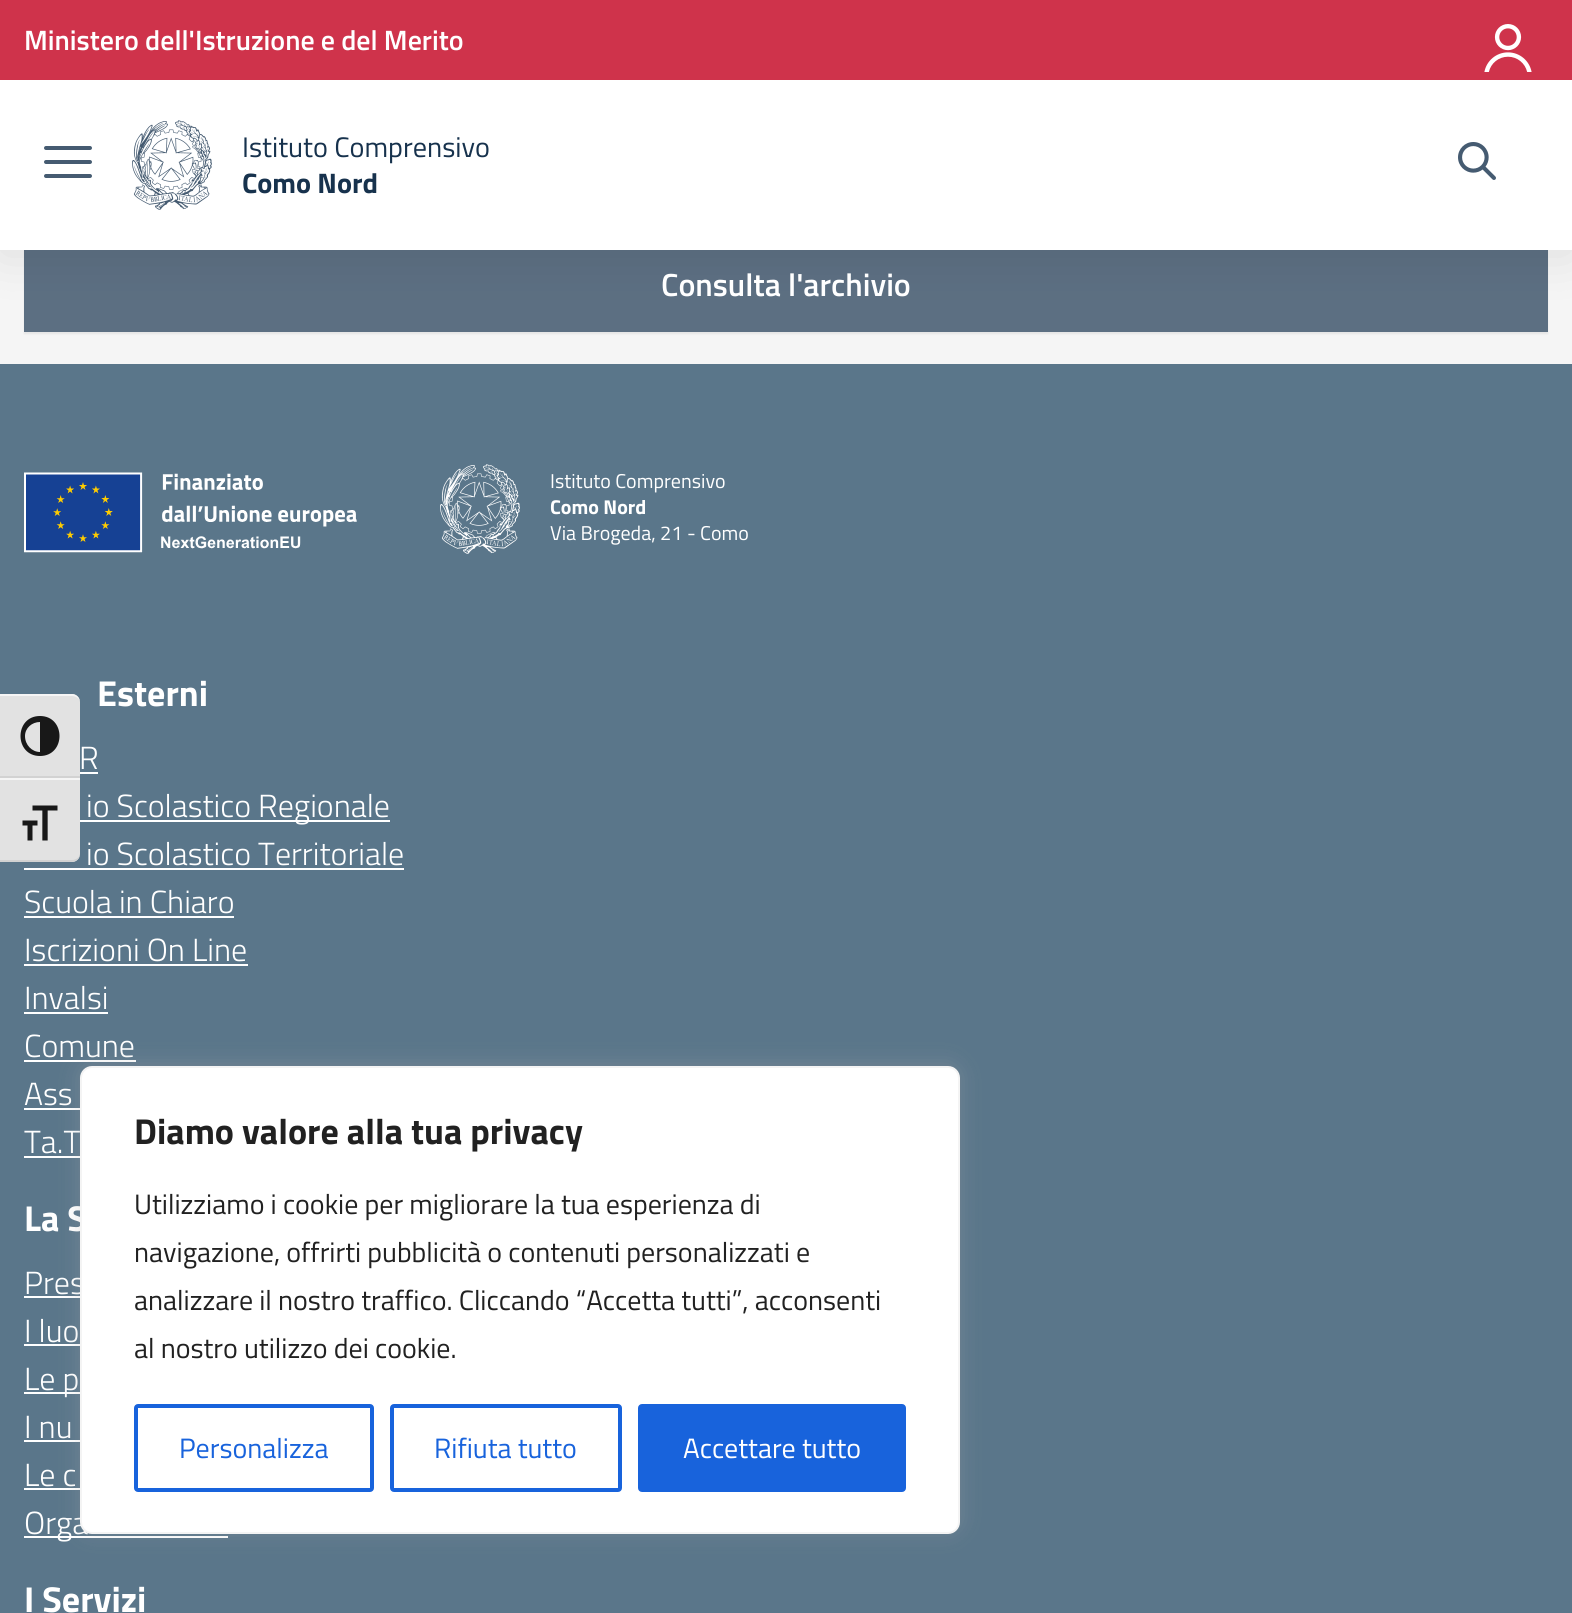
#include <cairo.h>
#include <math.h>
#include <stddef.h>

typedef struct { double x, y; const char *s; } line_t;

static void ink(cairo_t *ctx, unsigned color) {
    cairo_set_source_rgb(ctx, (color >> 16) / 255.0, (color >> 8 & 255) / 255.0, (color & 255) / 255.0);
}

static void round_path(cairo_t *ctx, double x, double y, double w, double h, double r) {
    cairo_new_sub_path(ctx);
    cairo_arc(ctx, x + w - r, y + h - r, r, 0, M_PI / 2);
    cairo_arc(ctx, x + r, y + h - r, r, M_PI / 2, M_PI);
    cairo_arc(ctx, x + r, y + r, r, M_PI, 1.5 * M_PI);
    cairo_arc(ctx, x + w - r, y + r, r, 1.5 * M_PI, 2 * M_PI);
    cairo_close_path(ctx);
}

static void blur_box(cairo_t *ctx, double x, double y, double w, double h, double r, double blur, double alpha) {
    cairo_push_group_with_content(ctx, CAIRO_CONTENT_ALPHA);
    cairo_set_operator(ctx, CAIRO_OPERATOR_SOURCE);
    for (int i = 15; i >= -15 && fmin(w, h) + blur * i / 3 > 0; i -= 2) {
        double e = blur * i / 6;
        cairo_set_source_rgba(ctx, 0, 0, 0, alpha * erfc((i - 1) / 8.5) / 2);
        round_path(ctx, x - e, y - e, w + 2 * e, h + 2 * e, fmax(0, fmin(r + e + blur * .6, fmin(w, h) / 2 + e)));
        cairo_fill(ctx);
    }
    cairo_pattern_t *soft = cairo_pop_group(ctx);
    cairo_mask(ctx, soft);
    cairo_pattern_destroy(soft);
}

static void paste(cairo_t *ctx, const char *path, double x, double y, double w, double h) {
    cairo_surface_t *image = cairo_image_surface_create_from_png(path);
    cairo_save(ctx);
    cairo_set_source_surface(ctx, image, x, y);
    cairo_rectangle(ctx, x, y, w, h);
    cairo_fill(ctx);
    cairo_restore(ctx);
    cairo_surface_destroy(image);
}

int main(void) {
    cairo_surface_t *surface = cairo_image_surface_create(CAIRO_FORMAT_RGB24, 1572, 1613);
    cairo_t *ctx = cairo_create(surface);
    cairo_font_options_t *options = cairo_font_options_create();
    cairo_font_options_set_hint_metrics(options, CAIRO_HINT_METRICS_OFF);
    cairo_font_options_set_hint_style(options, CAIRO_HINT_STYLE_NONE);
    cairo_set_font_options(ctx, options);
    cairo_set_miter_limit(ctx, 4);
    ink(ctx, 0xF5F5F5);
    cairo_paint(ctx);
    ink(ctx, 0x000000);
    blur_box(ctx, 24, 238, 1524, 96, 0, 1, 0.07);
    ink(ctx, 0x5C6F82);
    cairo_rectangle(ctx, 24, 250, 1524, 82);
    cairo_fill(ctx);
    ink(ctx, 0x000000);
    blur_box(ctx, 0, 4, 1572, 250, 0, 25, 0.1);
    ink(ctx, 0xFFFFFF);
    cairo_rectangle(ctx, 0, 80, 1572, 170);
    cairo_fill(ctx);
    ink(ctx, 0xCF334B);
    cairo_rectangle(ctx, 0, 0, 1572, 80);
    cairo_fill(ctx);
    cairo_select_font_face(ctx, "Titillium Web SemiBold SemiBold", CAIRO_FONT_SLANT_NORMAL, CAIRO_FONT_WEIGHT_NORMAL);
    cairo_set_font_size(ctx, 28);
    ink(ctx, 0xFFFFFF);
    cairo_move_to(ctx, 24, 50);
    cairo_show_text(ctx, "Ministero dell'Istruzione e del Merito");
    paste(ctx, "media/1.png", 1484, 24, 48, 48);
    ink(ctx, 0x455B71);
    round_path(ctx, 44, 160, 48, 4, 2);
    cairo_fill(ctx);
    round_path(ctx, 44, 146, 48, 4, 2);
    cairo_fill(ctx);
    round_path(ctx, 44, 174, 48, 4, 2);
    cairo_fill(ctx);
    paste(ctx, "media/2.png", 132, 120, 80, 90);
    cairo_select_font_face(ctx, "Titillium Web", CAIRO_FONT_SLANT_NORMAL, CAIRO_FONT_WEIGHT_NORMAL);
    cairo_set_font_size(ctx, 28.25);
    ink(ctx, 0x17324D);
    cairo_move_to(ctx, 242, 157);
    cairo_show_text(ctx, "Istituto Comprensivo");
    cairo_select_font_face(ctx, "Titillium Web", CAIRO_FONT_SLANT_NORMAL, CAIRO_FONT_WEIGHT_BOLD);
    cairo_move_to(ctx, 242, 193);
    cairo_show_text(ctx, "Como Nord");
    paste(ctx, "media/3.png", 1458, 142, 38, 38);
    cairo_select_font_face(ctx, "Titillium Web SemiBold SemiBold", CAIRO_FONT_SLANT_NORMAL, CAIRO_FONT_WEIGHT_NORMAL);
    cairo_set_font_size(ctx, 32);
    ink(ctx, 0xFFFFFF);
    cairo_move_to(ctx, 661, 296);
    cairo_show_text(ctx, "Consulta l'archivio");
    ink(ctx, 0x5A768A);
    cairo_rectangle(ctx, 0, 364, 1572, 1249);
    cairo_fill(ctx);
    paste(ctx, "media/4.png", 24, 472, 333, 81);
    paste(ctx, "media/5.png", 440, 464, 80, 90);
    cairo_select_font_face(ctx, "Titillium Web", CAIRO_FONT_SLANT_NORMAL, CAIRO_FONT_WEIGHT_NORMAL);
    cairo_set_font_size(ctx, 20);
    ink(ctx, 0xFFFFFF);
    cairo_move_to(ctx, 550, 488);
    cairo_show_text(ctx, "Istituto Comprensivo");
    cairo_select_font_face(ctx, "Titillium Web", CAIRO_FONT_SLANT_NORMAL, CAIRO_FONT_WEIGHT_BOLD);
    cairo_move_to(ctx, 550, 514);
    cairo_show_text(ctx, "Como Nord");
    cairo_select_font_face(ctx, "Titillium Web", CAIRO_FONT_SLANT_NORMAL, CAIRO_FONT_WEIGHT_NORMAL);
    cairo_move_to(ctx, 550, 540);
    cairo_show_text(ctx, "Via Brogeda, 21 - Como");
    cairo_select_font_face(ctx, "Titillium Web", CAIRO_FONT_SLANT_NORMAL, CAIRO_FONT_WEIGHT_BOLD);
    cairo_set_font_size(ctx, 36);
    cairo_move_to(ctx, 97, 706);
    cairo_show_text(ctx, "Esterni");
    cairo_select_font_face(ctx, "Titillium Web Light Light", CAIRO_FONT_SLANT_NORMAL, CAIRO_FONT_WEIGHT_NORMAL);
    cairo_set_font_size(ctx, 32);
    cairo_move_to(ctx, 79, 769);
    cairo_show_text(ctx, "R");
    cairo_rectangle(ctx, 80, 772, 18, 2);
    cairo_fill(ctx);
    cairo_rectangle(ctx, 80, 820, 310, 2);
    cairo_fill(ctx);
    cairo_move_to(ctx, 86, 817);
    cairo_show_text(ctx, "io Scolastico Regionale");
    cairo_move_to(ctx, 86, 865);
    cairo_show_text(ctx, "io Scolastico Territoriale");
    cairo_rectangle(ctx, 24, 868, 380, 2);
    cairo_fill(ctx);
    cairo_move_to(ctx, 24, 913);
    cairo_show_text(ctx, "Scuola in Chiaro");
    cairo_rectangle(ctx, 24, 916, 210, 2);
    cairo_fill(ctx);
    cairo_move_to(ctx, 24, 961);
    cairo_show_text(ctx, "Iscrizioni On Line");
    cairo_rectangle(ctx, 24, 964, 224, 2);
    cairo_fill(ctx);
    cairo_move_to(ctx, 24, 1009);
    cairo_show_text(ctx, "Invalsi");
    cairo_rectangle(ctx, 24, 1012, 84, 2);
    cairo_fill(ctx);
    cairo_move_to(ctx, 24, 1057);
    cairo_show_text(ctx, "Comune");
    cairo_rectangle(ctx, 24, 1060, 112, 2);
    cairo_fill(ctx);
    cairo_move_to(ctx, 24, 1105);
    cairo_show_text(ctx, "Ass");
    cairo_rectangle(ctx, 24, 1108, 56, 2);
    cairo_fill(ctx);
    cairo_move_to(ctx, 24, 1153);
    cairo_show_text(ctx, "Ta.T");
    cairo_rectangle(ctx, 24, 1156, 56, 2);
    cairo_fill(ctx);
    cairo_select_font_face(ctx, "Titillium Web", CAIRO_FONT_SLANT_NORMAL, CAIRO_FONT_WEIGHT_BOLD);
    cairo_set_font_size(ctx, 36);
    cairo_move_to(ctx, 24, 1231);
    cairo_show_text(ctx, "La S");
    cairo_select_font_face(ctx, "Titillium Web Light Light", CAIRO_FONT_SLANT_NORMAL, CAIRO_FONT_WEIGHT_NORMAL);
    cairo_set_font_size(ctx, 32);
    cairo_move_to(ctx, 24, 1294);
    cairo_show_text(ctx, "Pres");
    cairo_rectangle(ctx, 24, 1296, 56, 2);
    cairo_fill(ctx);
    cairo_move_to(ctx, 24, 1342);
    cairo_show_text(ctx, "I luo");
    cairo_rectangle(ctx, 24, 1344, 56, 2);
    cairo_fill(ctx);
    cairo_rectangle(ctx, 24, 1392, 56, 2);
    cairo_fill(ctx);
    cairo_move_to(ctx, 24, 1390);
    cairo_show_text(ctx, "Le p");
    cairo_move_to(ctx, 24, 1438);
    cairo_show_text(ctx, "I nu");
    cairo_rectangle(ctx, 24, 1440, 56, 2);
    cairo_fill(ctx);
    cairo_move_to(ctx, 24, 1486);
    cairo_show_text(ctx, "Le c");
    cairo_rectangle(ctx, 24, 1488, 56, 2);
    cairo_fill(ctx);
    cairo_rectangle(ctx, 24, 1536, 204, 2);
    cairo_fill(ctx);
    cairo_move_to(ctx, 24, 1534);
    cairo_show_text(ctx, "Orga");
    cairo_select_font_face(ctx, "Titillium Web", CAIRO_FONT_SLANT_NORMAL, CAIRO_FONT_WEIGHT_BOLD);
    cairo_set_font_size(ctx, 36);
    cairo_move_to(ctx, 24, 1612);
    cairo_show_text(ctx, "I Servizi");
    ink(ctx, 0xE2E2E2);
    cairo_new_path(ctx);
    cairo_move_to(ctx, 0, 694);
    cairo_line_to(ctx, 72, 694);
    cairo_curve_to(ctx, 76.5, 694, 80, 697.5, 80, 702);
    cairo_line_to(ctx, 80, 778);
    cairo_line_to(ctx, 0, 778);
    cairo_close_path(ctx);
    cairo_fill(ctx);
    ink(ctx, 0xF5F5F5);
    cairo_new_path(ctx);
    cairo_move_to(ctx, 0, 694);
    cairo_line_to(ctx, 0, 696);
    cairo_line_to(ctx, 72, 696);
    cairo_curve_to(ctx, 76, 696, 80, 699, 80, 702);
    cairo_curve_to(ctx, 80, 698, 76, 694, 72, 694);
    cairo_close_path(ctx);
    cairo_fill(ctx);
    ink(ctx, 0xD2D2D2);
    cairo_rectangle(ctx, 0, 776, 80, 2);
    cairo_fill(ctx);
    ink(ctx, 0x181818);
    cairo_new_path(ctx);
    cairo_move_to(ctx, 40, 716);
    cairo_curve_to(ctx, 14, 716, 14, 756, 40, 756);
    cairo_curve_to(ctx, 66, 756, 66, 716, 40, 716);
    cairo_close_path(ctx);
    cairo_move_to(ctx, 25, 736);
    cairo_curve_to(ctx, 25, 728, 32, 722, 40, 722);
    cairo_line_to(ctx, 40, 752);
    cairo_curve_to(ctx, 32, 752, 25, 745, 25, 736);
    cairo_close_path(ctx);
    cairo_fill(ctx);
    ink(ctx, 0xE2E2E2);
    cairo_new_path(ctx);
    cairo_move_to(ctx, 0, 778);
    cairo_line_to(ctx, 80, 778);
    cairo_line_to(ctx, 80, 854);
    cairo_curve_to(ctx, 80, 858.5, 76.5, 862, 72, 862);
    cairo_line_to(ctx, 0, 862);
    cairo_close_path(ctx);
    cairo_fill(ctx);
    ink(ctx, 0xF5F5F5);
    cairo_rectangle(ctx, 0, 778, 80, 2);
    cairo_fill(ctx);
    ink(ctx, 0xD2D2D2);
    cairo_new_path(ctx);
    cairo_move_to(ctx, 0, 860);
    cairo_line_to(ctx, 0, 862);
    cairo_line_to(ctx, 72, 862);
    cairo_curve_to(ctx, 76, 862, 80, 858, 80, 854);
    cairo_curve_to(ctx, 80, 857, 76, 860, 72, 860);
    cairo_close_path(ctx);
    cairo_fill(ctx);
    paste(ctx, "media/6.png", 22, 805, 36, 36);
    ink(ctx, 0xACABAB);
    blur_box(ctx, 80, 1064, 880, 468, 12, 10, 0.3);
    ink(ctx, 0xFFFFFF);
    round_path(ctx, 81, 1067, 878, 466, 11);
    cairo_fill_preserve(ctx);
    ink(ctx, 0xF4F4F4);
    cairo_stroke(ctx);
    ink(ctx, 0x212121);
    cairo_move_to(ctx, 134, 1144);
    cairo_show_text(ctx, "Diamo valore alla tua privacy");
    cairo_select_font_face(ctx, "Titillium Web", CAIRO_FONT_SLANT_NORMAL, CAIRO_FONT_WEIGHT_NORMAL);
    cairo_set_font_size(ctx, 28);
    {
        static const line_t items[] = {
            {134, 1214, "Utilizziamo i cookie per migliorare la tua esperienza di"},
            {134, 1262, "navigazione, offrirti pubblicità o contenuti personalizzati e"},
            {134, 1310, "analizzare il nostro traffico. Cliccando “Accetta tutti”, acconsenti"},
            {134, 1358, "al nostro utilizzo dei cookie."},
        };
        for (size_t i = 0; i < sizeof items / sizeof *items; i++) {
            cairo_move_to(ctx, items[i].x, items[i].y);
            cairo_show_text(ctx, items[i].s);
        }
    }
    round_path(ctx, 136, 1406, 236, 84, 2);
    ink(ctx, 0x1863DC);
    cairo_set_line_width(ctx, 4);
    cairo_stroke(ctx);
    cairo_move_to(ctx, 179, 1458);
    cairo_show_text(ctx, "Personalizza");
    round_path(ctx, 392, 1406, 228, 84, 2);
    cairo_stroke(ctx);
    cairo_move_to(ctx, 434, 1458);
    cairo_show_text(ctx, "Rifiuta tutto");
    round_path(ctx, 640, 1406, 264, 84, 2);
    cairo_fill_preserve(ctx);
    cairo_stroke(ctx);
    ink(ctx, 0xFFFFFF);
    cairo_move_to(ctx, 683, 1458);
    cairo_show_text(ctx, "Accettare tutto");
    cairo_surface_write_to_png(surface, "image.png");
    cairo_font_options_destroy(options);
    cairo_destroy(ctx);
    cairo_surface_destroy(surface);
    return 0;
}
